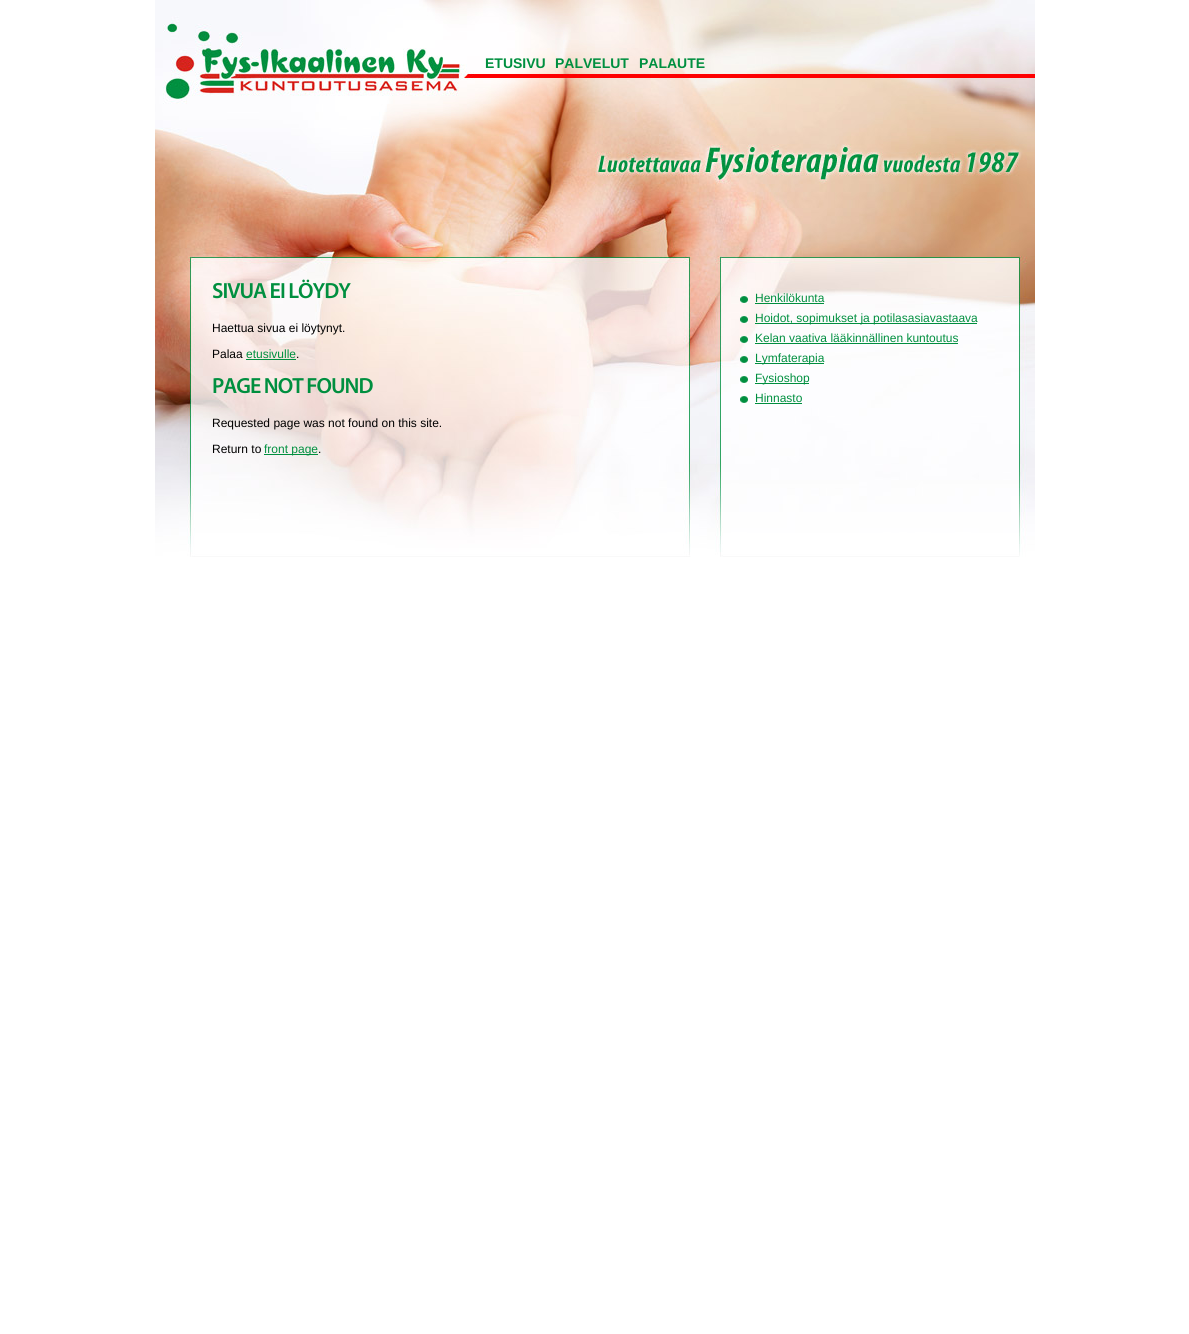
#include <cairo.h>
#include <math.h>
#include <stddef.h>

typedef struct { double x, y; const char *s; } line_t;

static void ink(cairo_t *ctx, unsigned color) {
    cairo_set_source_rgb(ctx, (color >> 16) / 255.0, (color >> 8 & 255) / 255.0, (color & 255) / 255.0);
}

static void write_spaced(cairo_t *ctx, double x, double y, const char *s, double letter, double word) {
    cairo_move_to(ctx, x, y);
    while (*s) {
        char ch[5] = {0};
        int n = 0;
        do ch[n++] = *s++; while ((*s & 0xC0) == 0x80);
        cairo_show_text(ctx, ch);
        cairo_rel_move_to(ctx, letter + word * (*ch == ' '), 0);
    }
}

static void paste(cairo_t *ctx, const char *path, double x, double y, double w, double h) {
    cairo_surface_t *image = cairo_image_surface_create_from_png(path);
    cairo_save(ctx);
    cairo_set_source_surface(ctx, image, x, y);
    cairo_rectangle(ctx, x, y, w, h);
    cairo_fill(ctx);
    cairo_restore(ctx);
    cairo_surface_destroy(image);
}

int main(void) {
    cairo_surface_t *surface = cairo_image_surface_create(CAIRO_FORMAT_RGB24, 1189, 1334);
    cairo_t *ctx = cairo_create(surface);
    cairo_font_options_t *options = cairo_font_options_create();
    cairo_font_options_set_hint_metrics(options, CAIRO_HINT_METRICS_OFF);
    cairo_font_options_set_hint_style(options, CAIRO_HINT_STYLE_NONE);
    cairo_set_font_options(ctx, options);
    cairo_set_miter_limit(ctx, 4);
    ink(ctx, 0xFFFFFF);
    cairo_paint(ctx);
    paste(ctx, "media/1.png", 155, 0, 880, 557);
    cairo_select_font_face(ctx, "Liberation Sans", CAIRO_FONT_SLANT_NORMAL, CAIRO_FONT_WEIGHT_BOLD);
    cairo_set_font_size(ctx, 14);
    ink(ctx, 0x008F3F);
    {
        static const line_t items[] = {
            {485, 68, "ETUSIVU"},
            {555, 68, "PALVELUT"},
            {639, 68, "PALAUTE"},
        };
        for (size_t i = 0; i < sizeof items / sizeof *items; i++) {
            cairo_move_to(ctx, items[i].x, items[i].y);
            cairo_show_text(ctx, items[i].s);
        }
    }
    cairo_select_font_face(ctx, "Myriad SemiBold", CAIRO_FONT_SLANT_NORMAL, CAIRO_FONT_WEIGHT_NORMAL);
    cairo_set_font_size(ctx, 22);
    write_spaced(ctx, 212, 298, "SIVUA EI LÖYDY", -1, 0);
    cairo_select_font_face(ctx, "Liberation Sans", CAIRO_FONT_SLANT_NORMAL, CAIRO_FONT_WEIGHT_NORMAL);
    cairo_set_font_size(ctx, 12);
    ink(ctx, 0x000000);
    cairo_move_to(ctx, 212, 332);
    cairo_show_text(ctx, "Haettua sivua ei löytynyt.");
    cairo_move_to(ctx, 212, 358);
    cairo_show_text(ctx, "Palaa");
    ink(ctx, 0x008F3F);
    cairo_move_to(ctx, 246, 358);
    cairo_show_text(ctx, "etusivulle");
    cairo_rectangle(ctx, 246, 359, 50, 1);
    cairo_fill(ctx);
    ink(ctx, 0x000000);
    cairo_move_to(ctx, 296, 358);
    cairo_show_text(ctx, ".");
    cairo_select_font_face(ctx, "Myriad SemiBold", CAIRO_FONT_SLANT_NORMAL, CAIRO_FONT_WEIGHT_NORMAL);
    cairo_set_font_size(ctx, 22);
    ink(ctx, 0x008F3F);
    write_spaced(ctx, 212, 393, "PAGE NOT FOUND", -1, 0);
    cairo_select_font_face(ctx, "Liberation Sans", CAIRO_FONT_SLANT_NORMAL, CAIRO_FONT_WEIGHT_NORMAL);
    cairo_set_font_size(ctx, 12);
    ink(ctx, 0x000000);
    cairo_move_to(ctx, 212, 427);
    cairo_show_text(ctx, "Requested page was not found on this site.");
    cairo_move_to(ctx, 212, 453);
    cairo_show_text(ctx, "Return to");
    ink(ctx, 0x008F3F);
    cairo_rectangle(ctx, 264, 454, 54, 1);
    cairo_fill(ctx);
    cairo_move_to(ctx, 264, 453);
    cairo_show_text(ctx, "front page");
    ink(ctx, 0x000000);
    cairo_move_to(ctx, 318, 453);
    cairo_show_text(ctx, ".");
    paste(ctx, "media/2.png", 740, 296, 8, 7);
    ink(ctx, 0x008F3F);
    cairo_move_to(ctx, 755, 302);
    cairo_show_text(ctx, "Henkilökunta");
    cairo_rectangle(ctx, 755, 303, 69, 1);
    cairo_fill(ctx);
    paste(ctx, "media/2.png", 740, 316, 8, 7);
    cairo_rectangle(ctx, 755, 323, 222, 1);
    cairo_fill(ctx);
    cairo_move_to(ctx, 755, 322);
    cairo_show_text(ctx, "Hoidot, sopimukset ja potilasasiavastaava");
    paste(ctx, "media/2.png", 740, 336, 8, 7);
    cairo_move_to(ctx, 755, 342);
    cairo_show_text(ctx, "Kelan vaativa lääkinnällinen kuntoutus");
    cairo_rectangle(ctx, 755, 343, 203, 1);
    cairo_fill(ctx);
    paste(ctx, "media/2.png", 740, 356, 8, 7);
    cairo_rectangle(ctx, 755, 363, 69, 1);
    cairo_fill(ctx);
    cairo_move_to(ctx, 755, 362);
    cairo_show_text(ctx, "Lymfaterapia");
    paste(ctx, "media/2.png", 740, 376, 8, 7);
    cairo_rectangle(ctx, 755, 383, 54, 1);
    cairo_fill(ctx);
    cairo_move_to(ctx, 755, 382);
    cairo_show_text(ctx, "Fysioshop");
    paste(ctx, "media/2.png", 740, 396, 8, 7);
    cairo_move_to(ctx, 755, 402);
    cairo_show_text(ctx, "Hinnasto");
    cairo_rectangle(ctx, 755, 403, 47, 1);
    cairo_fill(ctx);
    cairo_surface_write_to_png(surface, "image.png");
    cairo_font_options_destroy(options);
    cairo_destroy(ctx);
    cairo_surface_destroy(surface);
    return 0;
}
